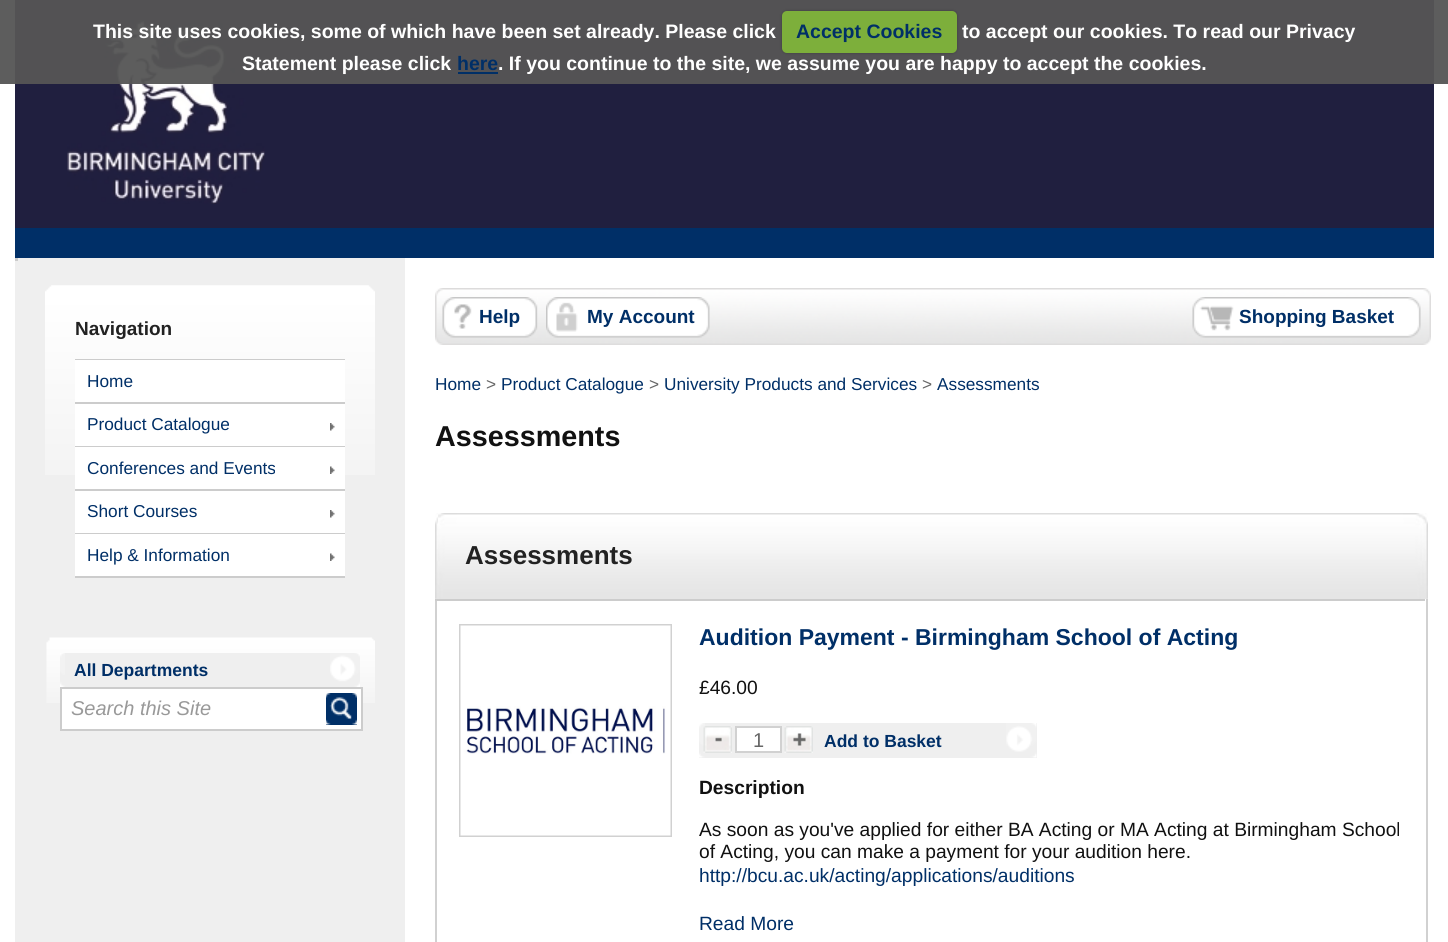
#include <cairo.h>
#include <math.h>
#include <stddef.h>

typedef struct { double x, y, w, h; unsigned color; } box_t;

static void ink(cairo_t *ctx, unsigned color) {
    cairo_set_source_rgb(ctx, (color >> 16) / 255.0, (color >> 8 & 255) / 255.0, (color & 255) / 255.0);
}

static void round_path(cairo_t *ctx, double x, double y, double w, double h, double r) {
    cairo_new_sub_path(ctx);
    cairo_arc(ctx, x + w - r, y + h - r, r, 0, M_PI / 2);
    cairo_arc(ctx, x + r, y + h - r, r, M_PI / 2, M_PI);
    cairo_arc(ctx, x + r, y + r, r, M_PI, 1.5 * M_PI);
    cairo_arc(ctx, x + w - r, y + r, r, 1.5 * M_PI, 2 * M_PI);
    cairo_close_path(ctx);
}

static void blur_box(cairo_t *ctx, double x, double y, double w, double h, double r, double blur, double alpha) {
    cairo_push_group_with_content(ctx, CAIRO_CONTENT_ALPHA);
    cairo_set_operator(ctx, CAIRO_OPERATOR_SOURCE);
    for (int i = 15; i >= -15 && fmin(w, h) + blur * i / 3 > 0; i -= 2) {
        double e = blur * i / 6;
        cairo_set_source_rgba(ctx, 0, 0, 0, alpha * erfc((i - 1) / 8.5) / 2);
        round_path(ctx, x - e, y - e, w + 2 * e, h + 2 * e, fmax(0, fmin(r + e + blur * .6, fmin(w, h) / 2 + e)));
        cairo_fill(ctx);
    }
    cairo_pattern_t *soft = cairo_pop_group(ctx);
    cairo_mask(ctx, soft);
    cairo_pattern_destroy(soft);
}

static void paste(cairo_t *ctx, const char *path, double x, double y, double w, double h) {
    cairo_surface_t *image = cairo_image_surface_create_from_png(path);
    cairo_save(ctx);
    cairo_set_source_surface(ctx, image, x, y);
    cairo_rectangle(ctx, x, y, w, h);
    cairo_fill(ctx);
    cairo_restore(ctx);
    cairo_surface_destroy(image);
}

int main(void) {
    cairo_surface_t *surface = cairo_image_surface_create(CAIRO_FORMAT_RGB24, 1448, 942);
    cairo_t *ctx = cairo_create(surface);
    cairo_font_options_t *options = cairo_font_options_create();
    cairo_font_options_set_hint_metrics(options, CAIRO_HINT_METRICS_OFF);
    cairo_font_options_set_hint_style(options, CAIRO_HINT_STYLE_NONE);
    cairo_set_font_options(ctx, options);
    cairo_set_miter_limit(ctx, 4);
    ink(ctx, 0xFFFFFF);
    cairo_paint(ctx);
    ink(ctx, 0x201F3F);
    cairo_rectangle(ctx, 15, 0, 1419, 228);
    cairo_fill(ctx);
    paste(ctx, "media/1.png", 67, 20, 198, 184);
    cairo_set_source_rgba(ctx, 0.337, 0.337, 0.337, 0.95);
    cairo_rectangle(ctx, 0, 0, 1448, 84);
    cairo_fill(ctx);
    cairo_select_font_face(ctx, "Liberation Sans", CAIRO_FONT_SLANT_NORMAL, CAIRO_FONT_WEIGHT_BOLD);
    cairo_set_font_size(ctx, 19.5);
    ink(ctx, 0xFFFFFF);
    cairo_move_to(ctx, 93, 38);
    cairo_show_text(ctx, "This site uses cookies, some of which have been set already. Please click");
    ink(ctx, 0x000000);
    blur_box(ctx, 782, 11, 175, 42, 5, 1.5, 0.25);
    ink(ctx, 0x7DAF3B);
    round_path(ctx, 782, 11, 175, 42, 5);
    cairo_fill(ctx);
    ink(ctx, 0x002F67);
    cairo_move_to(ctx, 796, 38);
    cairo_show_text(ctx, "Accept Cookies");
    ink(ctx, 0xFFFFFF);
    cairo_move_to(ctx, 962, 38);
    cairo_show_text(ctx, "to accept our cookies. To read our Privacy");
    cairo_move_to(ctx, 242, 70);
    cairo_show_text(ctx, "Statement please click");
    ink(ctx, 0x002F67);
    cairo_move_to(ctx, 457, 70);
    cairo_show_text(ctx, "here");
    cairo_rectangle(ctx, 458, 72, 40, 2);
    cairo_fill(ctx);
    ink(ctx, 0xFFFFFF);
    cairo_move_to(ctx, 498, 70);
    cairo_show_text(ctx, ". If you continue to the site, we assume you are happy to accept the cookies.");
    {
        static const box_t items[] = {
            {15, 228, 1419, 30, 0x002F67},
            {15, 258, 390, 684, 0xEFEFEF},
            {15, 258, 3, 3, 0xCCCCCC},
        };
        for (size_t i = 0; i < sizeof items / sizeof *items; i++) {
            ink(ctx, items[i].color);
            cairo_rectangle(ctx, items[i].x, items[i].y, items[i].w, items[i].h);
            cairo_fill(ctx);
        }
    }
    paste(ctx, "media/2.png", 45, 285, 330, 190);
    cairo_set_font_size(ctx, 19);
    ink(ctx, 0x222222);
    cairo_move_to(ctx, 75, 335);
    cairo_show_text(ctx, "Navigation");
    {
        static const box_t items[] = {
            {75, 359, 270, 1, 0xCCCCCC},
            {75, 360, 270, 42, 0xFFFFFF},
            {75, 402, 270, 2, 0xCCCCCC},
        };
        for (size_t i = 0; i < sizeof items / sizeof *items; i++) {
            ink(ctx, items[i].color);
            cairo_rectangle(ctx, items[i].x, items[i].y, items[i].w, items[i].h);
            cairo_fill(ctx);
        }
    }
    cairo_select_font_face(ctx, "Liberation Sans", CAIRO_FONT_SLANT_NORMAL, CAIRO_FONT_WEIGHT_NORMAL);
    cairo_set_font_size(ctx, 17.25);
    ink(ctx, 0x002F67);
    cairo_move_to(ctx, 87, 387);
    cairo_show_text(ctx, "Home");
    ink(ctx, 0xFFFFFF);
    cairo_rectangle(ctx, 75, 404, 270, 42);
    cairo_fill(ctx);
    ink(ctx, 0xCCCCCC);
    cairo_rectangle(ctx, 75, 446, 270, 1);
    cairo_fill(ctx);
    paste(ctx, "media/3.png", 330, 423, 5, 8);
    ink(ctx, 0x002F67);
    cairo_move_to(ctx, 87, 430);
    cairo_show_text(ctx, "Product Catalogue");
    ink(ctx, 0xFFFFFF);
    cairo_rectangle(ctx, 75, 447, 270, 42);
    cairo_fill(ctx);
    ink(ctx, 0xCCCCCC);
    cairo_rectangle(ctx, 75, 489, 270, 2);
    cairo_fill(ctx);
    paste(ctx, "media/4.png", 330, 466, 5, 8);
    ink(ctx, 0x002F67);
    cairo_move_to(ctx, 87, 474);
    cairo_show_text(ctx, "Conferences and Events");
    ink(ctx, 0xFFFFFF);
    cairo_rectangle(ctx, 75, 491, 270, 42);
    cairo_fill(ctx);
    ink(ctx, 0xCCCCCC);
    cairo_rectangle(ctx, 75, 533, 270, 1);
    cairo_fill(ctx);
    paste(ctx, "media/3.png", 330, 510, 5, 8);
    ink(ctx, 0x002F67);
    cairo_move_to(ctx, 87, 517);
    cairo_show_text(ctx, "Short Courses");
    ink(ctx, 0xFFFFFF);
    cairo_rectangle(ctx, 75, 534, 270, 42);
    cairo_fill(ctx);
    ink(ctx, 0xCCCCCC);
    cairo_rectangle(ctx, 75, 576, 270, 2);
    cairo_fill(ctx);
    paste(ctx, "media/4.png", 330, 553, 5, 8);
    ink(ctx, 0x002F67);
    cairo_move_to(ctx, 87, 561);
    cairo_show_text(ctx, "Help & Information");
    paste(ctx, "media/5.png", 46, 637, 329, 66);
    ink(ctx, 0xEFEFEF);
    cairo_rectangle(ctx, 60, 653, 300, 34);
    cairo_fill(ctx);
    paste(ctx, "media/6.png", 60, 653, 5, 34);
    paste(ctx, "media/7.png", 330, 653, 30, 34);
    cairo_select_font_face(ctx, "Liberation Sans", CAIRO_FONT_SLANT_NORMAL, CAIRO_FONT_WEIGHT_BOLD);
    cairo_set_font_size(ctx, 17.5);
    ink(ctx, 0x002F67);
    cairo_move_to(ctx, 74, 676);
    cairo_show_text(ctx, "All Departments");
    ink(ctx, 0xFFFFFF);
    cairo_rectangle(ctx, 61, 688, 301, 42);
    cairo_fill_preserve(ctx);
    ink(ctx, 0xCCCCCC);
    cairo_stroke(ctx);
    cairo_select_font_face(ctx, "Liberation Sans", CAIRO_FONT_SLANT_ITALIC, CAIRO_FONT_WEIGHT_NORMAL);
    cairo_set_font_size(ctx, 20);
    ink(ctx, 0x999999);
    cairo_move_to(ctx, 71, 715);
    cairo_show_text(ctx, "Search this Site");
    ink(ctx, 0x002F67);
    cairo_rectangle(ctx, 326, 693, 31, 32);
    cairo_fill(ctx);
    paste(ctx, "media/8.png", 326, 693, 31, 32);
    paste(ctx, "media/9.png", 435, 288, 996, 57);
    paste(ctx, "media/10.png", 442, 297, 96, 41);
    cairo_select_font_face(ctx, "Liberation Sans", CAIRO_FONT_SLANT_NORMAL, CAIRO_FONT_WEIGHT_BOLD);
    cairo_set_font_size(ctx, 19);
    cairo_move_to(ctx, 479, 323);
    cairo_show_text(ctx, "Help");
    paste(ctx, "media/11.png", 546, 297, 164, 41);
    cairo_move_to(ctx, 587, 323);
    cairo_show_text(ctx, "My Account");
    paste(ctx, "media/12.png", 1192, 297, 229, 41);
    cairo_move_to(ctx, 1239, 323);
    cairo_show_text(ctx, "Shopping Basket");
    cairo_select_font_face(ctx, "Liberation Sans", CAIRO_FONT_SLANT_NORMAL, CAIRO_FONT_WEIGHT_NORMAL);
    cairo_set_font_size(ctx, 17.25);
    cairo_move_to(ctx, 435, 390);
    cairo_show_text(ctx, "Home");
    ink(ctx, 0x666666);
    cairo_move_to(ctx, 486, 390);
    cairo_show_text(ctx, ">");
    ink(ctx, 0x002F67);
    cairo_move_to(ctx, 501, 390);
    cairo_show_text(ctx, "Product Catalogue");
    ink(ctx, 0x666666);
    cairo_move_to(ctx, 649, 390);
    cairo_show_text(ctx, ">");
    ink(ctx, 0x002F67);
    cairo_move_to(ctx, 664, 390);
    cairo_show_text(ctx, "University Products and Services");
    ink(ctx, 0x666666);
    cairo_move_to(ctx, 922, 390);
    cairo_show_text(ctx, ">");
    ink(ctx, 0x002F67);
    cairo_move_to(ctx, 937, 390);
    cairo_show_text(ctx, "Assessments");
    cairo_select_font_face(ctx, "Liberation Sans", CAIRO_FONT_SLANT_NORMAL, CAIRO_FONT_WEIGHT_BOLD);
    cairo_set_font_size(ctx, 28.75);
    ink(ctx, 0x111111);
    cairo_move_to(ctx, 435, 446);
    cairo_show_text(ctx, "Assessments");
    cairo_rectangle(ctx, 436, 514, 991, 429);
    ink(ctx, 0xD1D1D1);
    cairo_stroke(ctx);
    ink(ctx, 0xE5E5E5);
    cairo_rectangle(ctx, 435, 598, 993, 1);
    cairo_fill(ctx);
    paste(ctx, "media/13.png", 435, 513, 3, 86);
    ink(ctx, 0xCCCCCC);
    cairo_rectangle(ctx, 435, 599, 990, 2);
    cairo_fill(ctx);
    paste(ctx, "media/14.png", 438, 513, 990, 86);
    cairo_set_font_size(ctx, 26);
    ink(ctx, 0x222222);
    cairo_move_to(ctx, 465, 564);
    cairo_show_text(ctx, "Assessments");
    cairo_rectangle(ctx, 460, 625, 211, 211);
    ink(ctx, 0xD1D1D1);
    cairo_stroke(ctx);
    paste(ctx, "media/15.png", 460, 625, 211, 211);
    cairo_set_font_size(ctx, 23);
    ink(ctx, 0x002F67);
    cairo_move_to(ctx, 699, 645);
    cairo_show_text(ctx, "Audition Payment - Birmingham School of Acting");
    cairo_select_font_face(ctx, "Liberation Sans", CAIRO_FONT_SLANT_NORMAL, CAIRO_FONT_WEIGHT_NORMAL);
    cairo_set_font_size(ctx, 19.2);
    ink(ctx, 0x111111);
    cairo_move_to(ctx, 699, 694);
    cairo_show_text(ctx, "£46.00");
    ink(ctx, 0xEFEFEF);
    cairo_rectangle(ctx, 699, 723, 338, 35);
    cairo_fill(ctx);
    paste(ctx, "media/18.png", 699, 723, 6, 35);
    paste(ctx, "media/16.png", 703, 726, 29, 27);
    ink(ctx, 0xFFFFFF);
    cairo_rectangle(ctx, 736, 727, 45, 25);
    cairo_fill_preserve(ctx);
    ink(ctx, 0xD1D1D1);
    cairo_stroke(ctx);
    cairo_set_font_size(ctx, 20);
    ink(ctx, 0x666666);
    cairo_move_to(ctx, 753, 747);
    cairo_show_text(ctx, "1");
    paste(ctx, "media/17.png", 784, 726, 29, 27);
    paste(ctx, "media/19.png", 1006, 723, 31, 35);
    cairo_select_font_face(ctx, "Liberation Sans", CAIRO_FONT_SLANT_NORMAL, CAIRO_FONT_WEIGHT_BOLD);
    cairo_set_font_size(ctx, 17.5);
    ink(ctx, 0x002F67);
    cairo_move_to(ctx, 824, 747);
    cairo_show_text(ctx, "Add to Basket");
    cairo_set_font_size(ctx, 19.2);
    ink(ctx, 0x111111);
    cairo_move_to(ctx, 699, 794);
    cairo_show_text(ctx, "Description");
    cairo_select_font_face(ctx, "Liberation Sans", CAIRO_FONT_SLANT_NORMAL, CAIRO_FONT_WEIGHT_NORMAL);
    cairo_move_to(ctx, 699, 836);
    cairo_show_text(ctx, "As soon as you've applied for either BA Acting or MA Acting at Birmingham School");
    cairo_move_to(ctx, 699, 858);
    cairo_show_text(ctx, "of Acting, you can make a payment for your audition here.");
    ink(ctx, 0x002F67);
    cairo_move_to(ctx, 699, 882);
    cairo_show_text(ctx, "http://bcu.ac.uk/acting/applications/auditions");
    cairo_move_to(ctx, 699, 930);
    cairo_show_text(ctx, "Read More");
    cairo_surface_write_to_png(surface, "image.png");
    cairo_font_options_destroy(options);
    cairo_destroy(ctx);
    cairo_surface_destroy(surface);
    return 0;
}
